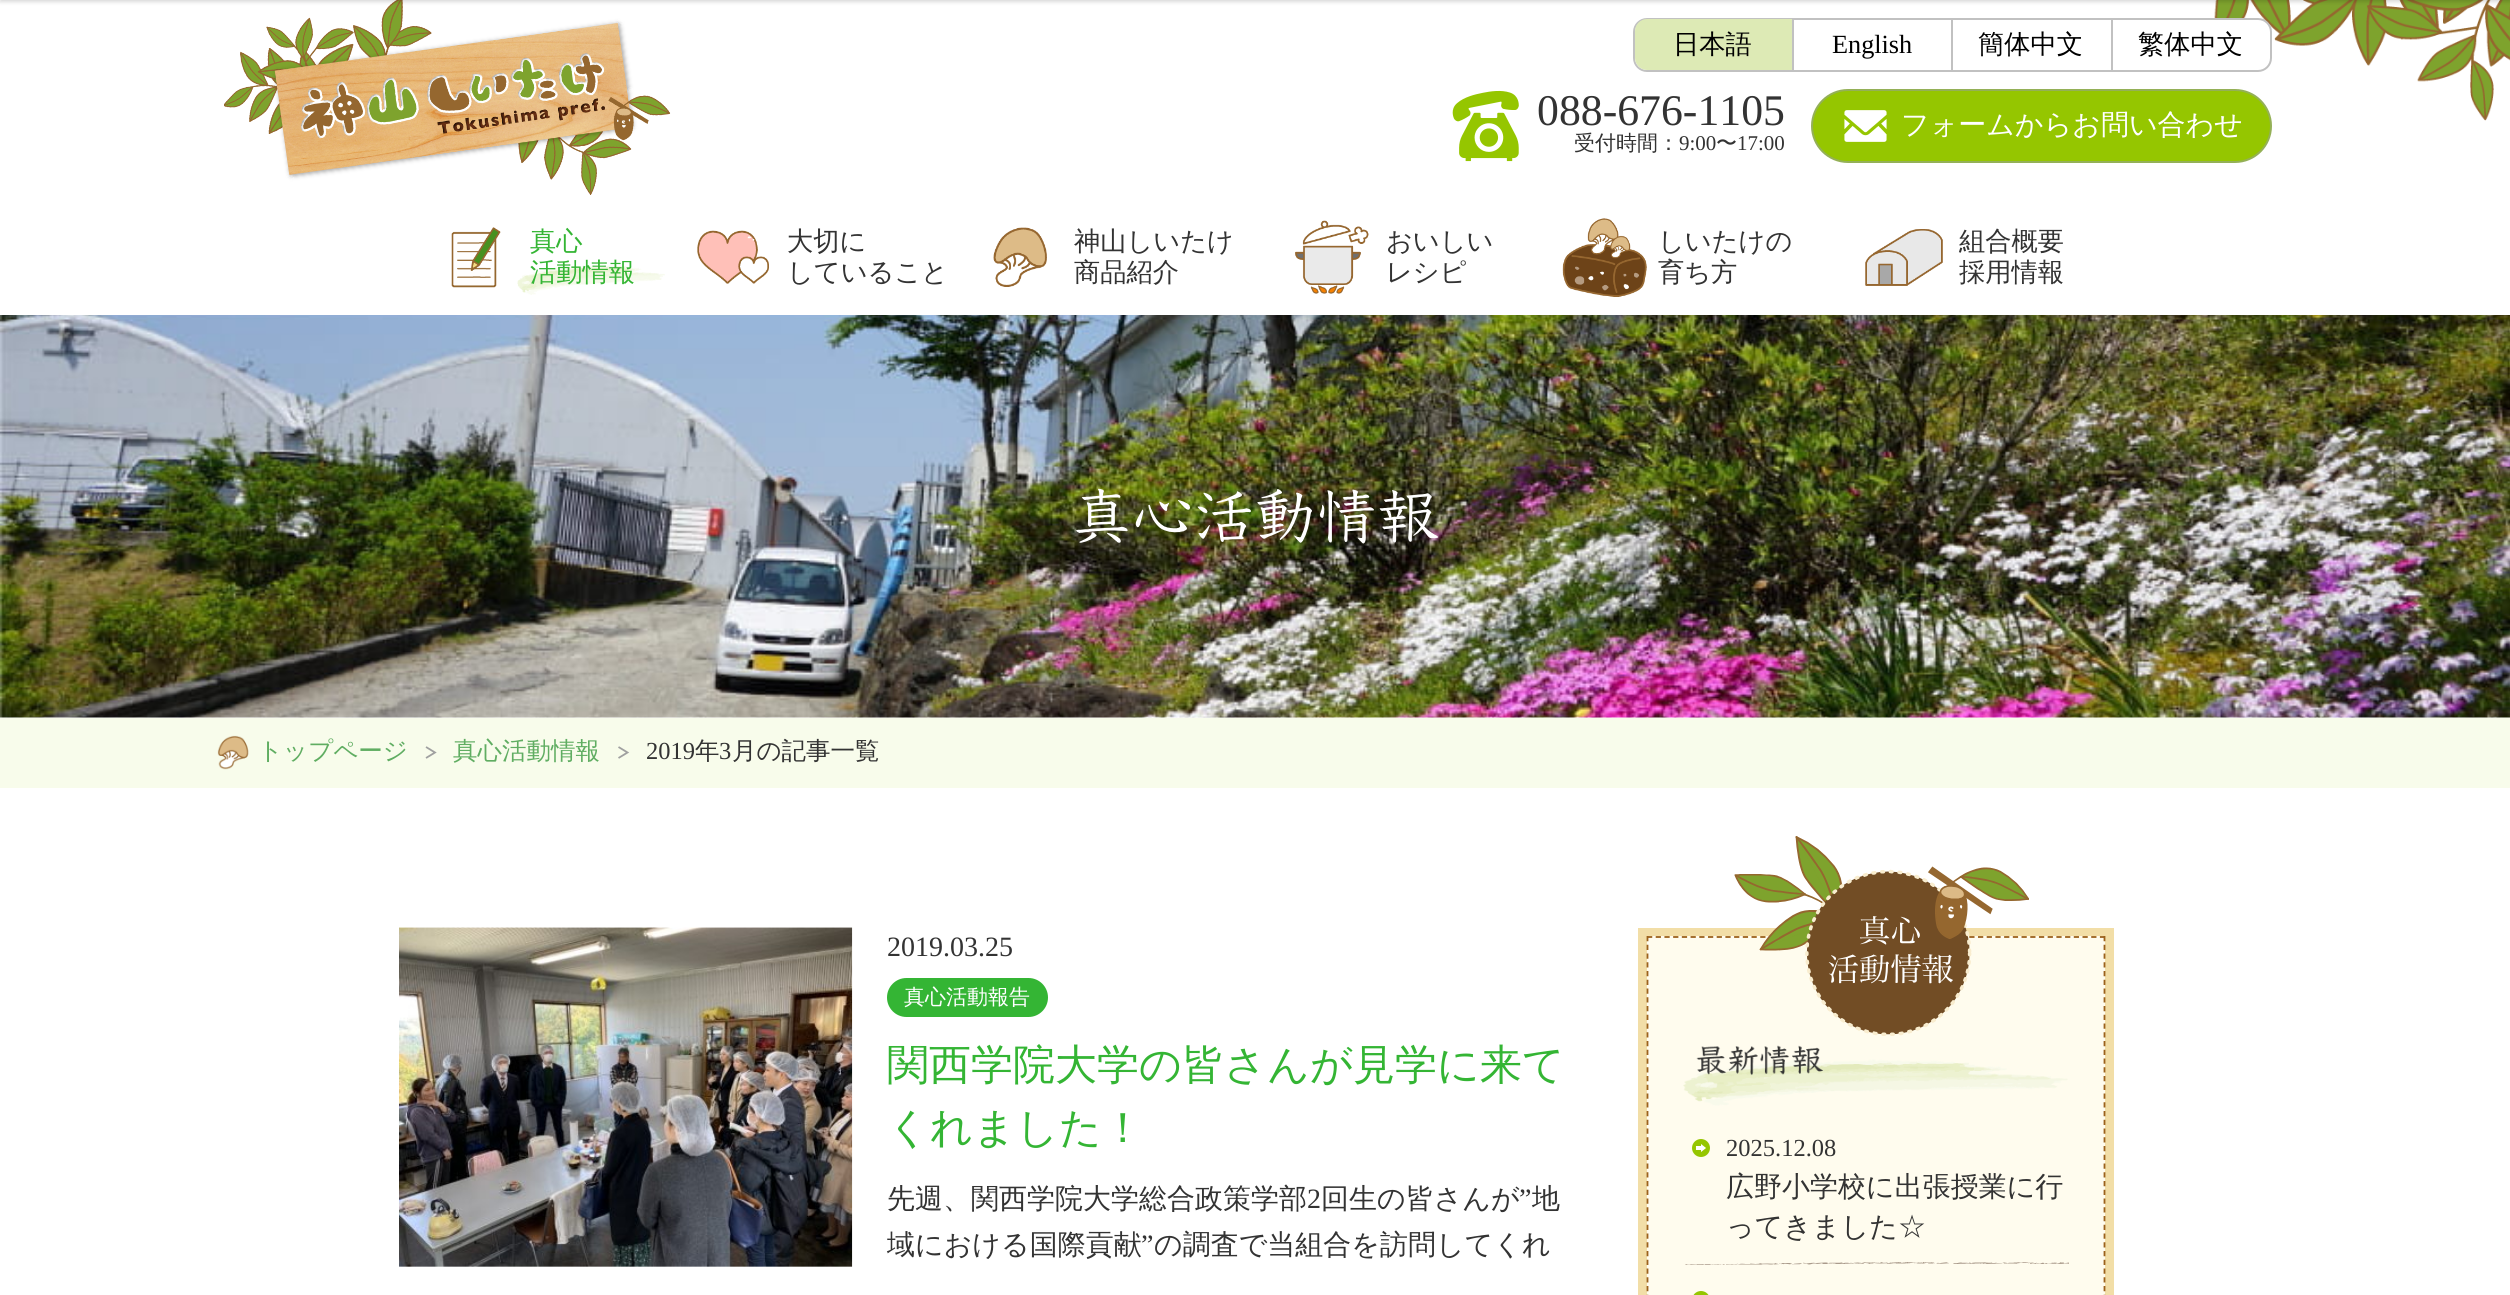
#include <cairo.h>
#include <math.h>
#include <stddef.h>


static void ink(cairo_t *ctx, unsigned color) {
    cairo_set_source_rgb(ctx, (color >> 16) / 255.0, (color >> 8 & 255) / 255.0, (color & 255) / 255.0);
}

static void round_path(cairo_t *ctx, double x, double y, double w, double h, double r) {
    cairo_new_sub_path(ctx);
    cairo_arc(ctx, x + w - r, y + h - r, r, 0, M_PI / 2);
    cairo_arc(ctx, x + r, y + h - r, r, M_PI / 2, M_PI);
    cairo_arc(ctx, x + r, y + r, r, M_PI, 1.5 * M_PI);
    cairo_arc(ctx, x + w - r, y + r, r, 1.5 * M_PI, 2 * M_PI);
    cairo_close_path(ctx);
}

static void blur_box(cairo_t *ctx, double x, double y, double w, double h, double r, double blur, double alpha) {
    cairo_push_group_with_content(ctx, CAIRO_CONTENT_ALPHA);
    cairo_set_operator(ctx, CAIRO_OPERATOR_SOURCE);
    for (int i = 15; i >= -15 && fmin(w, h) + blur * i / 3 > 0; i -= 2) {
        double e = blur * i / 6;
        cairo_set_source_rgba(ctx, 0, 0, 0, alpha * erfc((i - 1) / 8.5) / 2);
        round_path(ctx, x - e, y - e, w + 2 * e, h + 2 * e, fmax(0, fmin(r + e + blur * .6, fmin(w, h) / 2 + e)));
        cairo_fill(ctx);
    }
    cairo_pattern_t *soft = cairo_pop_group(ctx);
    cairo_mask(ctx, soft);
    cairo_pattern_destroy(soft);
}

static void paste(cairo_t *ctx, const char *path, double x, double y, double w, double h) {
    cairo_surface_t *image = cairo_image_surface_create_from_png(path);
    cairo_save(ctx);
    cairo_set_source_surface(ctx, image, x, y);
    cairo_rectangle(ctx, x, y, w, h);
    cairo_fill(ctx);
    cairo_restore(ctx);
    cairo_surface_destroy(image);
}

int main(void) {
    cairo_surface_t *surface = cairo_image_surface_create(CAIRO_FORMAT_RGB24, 2510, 1295);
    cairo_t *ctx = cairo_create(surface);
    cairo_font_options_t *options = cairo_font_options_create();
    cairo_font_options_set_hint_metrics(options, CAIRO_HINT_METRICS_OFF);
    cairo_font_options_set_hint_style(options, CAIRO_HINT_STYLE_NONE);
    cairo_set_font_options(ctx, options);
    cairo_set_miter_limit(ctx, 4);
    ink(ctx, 0xFFFFFF);
    cairo_paint(ctx);
    paste(ctx, "media/1.png", 224, 0, 447, 195);
    paste(ctx, "media/4.png", 2214, 0, 296, 121);
    ink(ctx, 0x000000);
    blur_box(ctx, 0, -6, 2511, 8, 0, 2, 0.15);
    ink(ctx, 0xFFFFFF);
    round_path(ctx, 1634, 19, 637, 52, 13);
    cairo_fill_preserve(ctx);
    ink(ctx, 0xC1C1C1);
    cairo_stroke(ctx);
    ink(ctx, 0xDDEAB5);
    cairo_new_path(ctx);
    cairo_move_to(ctx, 1647, 19);
    cairo_line_to(ctx, 1794, 19);
    cairo_line_to(ctx, 1794, 70);
    cairo_line_to(ctx, 1647, 70);
    cairo_curve_to(ctx, 1640.5, 70, 1635, 64.5, 1635, 58);
    cairo_line_to(ctx, 1635, 31);
    cairo_curve_to(ctx, 1635, 24.5, 1640.5, 19, 1647, 19);
    cairo_close_path(ctx);
    cairo_fill(ctx);
    ink(ctx, 0xC1C1C1);
    cairo_rectangle(ctx, 1792, 19, 2, 51);
    cairo_fill(ctx);
    cairo_select_font_face(ctx, "WenQuanYi Zen Hei Medium", CAIRO_FONT_SLANT_NORMAL, CAIRO_FONT_WEIGHT_NORMAL);
    cairo_set_font_size(ctx, 26.25);
    ink(ctx, 0x000000);
    cairo_move_to(ctx, 1673, 53);
    cairo_show_text(ctx, "日本語");
    ink(ctx, 0xC1C1C1);
    cairo_rectangle(ctx, 1951, 19, 2, 51);
    cairo_fill(ctx);
    cairo_select_font_face(ctx, "Liberation Serif", CAIRO_FONT_SLANT_NORMAL, CAIRO_FONT_WEIGHT_NORMAL);
    ink(ctx, 0x000000);
    cairo_move_to(ctx, 1832, 53);
    cairo_show_text(ctx, "English");
    ink(ctx, 0xC1C1C1);
    cairo_rectangle(ctx, 2111, 19, 2, 51);
    cairo_fill(ctx);
    cairo_select_font_face(ctx, "WenQuanYi Zen Hei Medium", CAIRO_FONT_SLANT_NORMAL, CAIRO_FONT_WEIGHT_NORMAL);
    ink(ctx, 0x000000);
    cairo_move_to(ctx, 1978, 53);
    cairo_show_text(ctx, "簡体中文");
    cairo_move_to(ctx, 2138, 53);
    cairo_show_text(ctx, "繁体中文");
    paste(ctx, "media/2.png", 1452, 90, 67, 72);
    cairo_select_font_face(ctx, "Liberation Serif", CAIRO_FONT_SLANT_NORMAL, CAIRO_FONT_WEIGHT_NORMAL);
    cairo_set_font_size(ctx, 43.75);
    ink(ctx, 0x333333);
    cairo_move_to(ctx, 1537, 125);
    cairo_show_text(ctx, "088-676-1105");
    cairo_select_font_face(ctx, "WenQuanYi Zen Hei Medium", CAIRO_FONT_SLANT_NORMAL, CAIRO_FONT_WEIGHT_NORMAL);
    cairo_set_font_size(ctx, 21);
    cairo_move_to(ctx, 1574, 150);
    cairo_show_text(ctx, "受付時間：");
    cairo_select_font_face(ctx, "Liberation Serif", CAIRO_FONT_SLANT_NORMAL, CAIRO_FONT_WEIGHT_NORMAL);
    cairo_move_to(ctx, 1679, 150);
    cairo_show_text(ctx, "9:00");
    cairo_select_font_face(ctx, "WenQuanYi Zen Hei Medium", CAIRO_FONT_SLANT_NORMAL, CAIRO_FONT_WEIGHT_NORMAL);
    cairo_move_to(ctx, 1716, 150);
    cairo_show_text(ctx, "〜");
    cairo_select_font_face(ctx, "Liberation Serif", CAIRO_FONT_SLANT_NORMAL, CAIRO_FONT_WEIGHT_NORMAL);
    cairo_move_to(ctx, 1737, 150);
    cairo_show_text(ctx, "17:00");
    ink(ctx, 0x95C600);
    round_path(ctx, 1812, 90, 459, 72, 36);
    cairo_fill_preserve(ctx);
    ink(ctx, 0x94B057);
    cairo_stroke(ctx);
    paste(ctx, "media/3.png", 1844, 110, 43, 32);
    cairo_select_font_face(ctx, "WenQuanYi Zen Hei Medium", CAIRO_FONT_SLANT_NORMAL, CAIRO_FONT_WEIGHT_NORMAL);
    cairo_set_font_size(ctx, 28);
    ink(ctx, 0xFFFFFF);
    cairo_move_to(ctx, 1901, 134);
    cairo_show_text(ctx, "フォームからお問い合わせ");
    paste(ctx, "media/5.png", 517, 265, 148, 30);
    paste(ctx, "media/6.png", 451, 227, 50, 61);
    cairo_set_font_size(ctx, 26.25);
    ink(ctx, 0x34B534);
    cairo_move_to(ctx, 530, 250);
    cairo_show_text(ctx, "真心");
    cairo_move_to(ctx, 530, 281);
    cairo_show_text(ctx, "活動情報");
    paste(ctx, "media/7.png", 697, 230, 72, 54);
    ink(ctx, 0x333333);
    cairo_move_to(ctx, 787, 250);
    cairo_show_text(ctx, "大切に");
    cairo_move_to(ctx, 787, 281);
    cairo_show_text(ctx, "していること");
    paste(ctx, "media/8.png", 993, 227, 54, 60);
    cairo_move_to(ctx, 1074, 250);
    cairo_show_text(ctx, "神山しいたけ");
    cairo_move_to(ctx, 1074, 281);
    cairo_show_text(ctx, "商品紹介");
    paste(ctx, "media/9.png", 1295, 220, 74, 74);
    cairo_move_to(ctx, 1386, 250);
    cairo_show_text(ctx, "おいしい");
    cairo_move_to(ctx, 1386, 281);
    cairo_show_text(ctx, "レシピ");
    paste(ctx, "media/10.png", 1562, 218, 85, 79);
    cairo_move_to(ctx, 1658, 250);
    cairo_show_text(ctx, "しいたけの");
    cairo_move_to(ctx, 1658, 281);
    cairo_show_text(ctx, "育ち方");
    paste(ctx, "media/11.png", 1865, 229, 78, 57);
    cairo_move_to(ctx, 1959, 250);
    cairo_show_text(ctx, "組合概要");
    cairo_move_to(ctx, 1959, 281);
    cairo_show_text(ctx, "採用情報");
    paste(ctx, "media/12.png", 0, 315, 2510, 403);
    paste(ctx, "media/13.png", 1076, 488, 363, 56);
    ink(ctx, 0xF8FCEB);
    cairo_rectangle(ctx, 0, 718, 2510, 70);
    cairo_fill(ctx);
    paste(ctx, "media/14.png", 217, 735, 32, 35);
    cairo_set_font_size(ctx, 24.5);
    ink(ctx, 0x60AD62);
    cairo_move_to(ctx, 258, 759);
    cairo_show_text(ctx, "トップページ");
    cairo_new_path(ctx);
    cairo_move_to(ctx, 426, 747);
    cairo_line_to(ctx, 435, 752.5);
    cairo_line_to(ctx, 426, 758);
    ink(ctx, 0xA0A0A0);
    cairo_set_line_width(ctx, 1.8);
    cairo_stroke(ctx);
    ink(ctx, 0x60AD62);
    cairo_move_to(ctx, 453, 759);
    cairo_show_text(ctx, "真心活動情報");
    cairo_new_path(ctx);
    cairo_move_to(ctx, 618.5, 747);
    cairo_line_to(ctx, 627.5, 752.5);
    cairo_line_to(ctx, 618.5, 758);
    ink(ctx, 0xA0A0A0);
    cairo_stroke(ctx);
    cairo_select_font_face(ctx, "Liberation Serif", CAIRO_FONT_SLANT_NORMAL, CAIRO_FONT_WEIGHT_NORMAL);
    ink(ctx, 0x333333);
    cairo_move_to(ctx, 646, 759);
    cairo_show_text(ctx, "2019");
    cairo_select_font_face(ctx, "WenQuanYi Zen Hei Medium", CAIRO_FONT_SLANT_NORMAL, CAIRO_FONT_WEIGHT_NORMAL);
    cairo_move_to(ctx, 695, 759);
    cairo_show_text(ctx, "年");
    cairo_select_font_face(ctx, "Liberation Serif", CAIRO_FONT_SLANT_NORMAL, CAIRO_FONT_WEIGHT_NORMAL);
    cairo_move_to(ctx, 719, 759);
    cairo_show_text(ctx, "3");
    cairo_select_font_face(ctx, "WenQuanYi Zen Hei Medium", CAIRO_FONT_SLANT_NORMAL, CAIRO_FONT_WEIGHT_NORMAL);
    cairo_move_to(ctx, 732, 759);
    cairo_show_text(ctx, "月の記事一覧");
    paste(ctx, "media/15.png", 399, 927, 454, 340);
    cairo_select_font_face(ctx, "Liberation Serif", CAIRO_FONT_SLANT_NORMAL, CAIRO_FONT_WEIGHT_NORMAL);
    cairo_set_font_size(ctx, 28);
    cairo_move_to(ctx, 887, 956);
    cairo_show_text(ctx, "2019.03.25");
    ink(ctx, 0x34B534);
    round_path(ctx, 887, 978, 161, 39, 19.5);
    cairo_fill(ctx);
    cairo_select_font_face(ctx, "WenQuanYi Zen Hei Medium", CAIRO_FONT_SLANT_NORMAL, CAIRO_FONT_WEIGHT_NORMAL);
    cairo_set_font_size(ctx, 21);
    ink(ctx, 0xFFFFFF);
    cairo_move_to(ctx, 904, 1004);
    cairo_show_text(ctx, "真心活動報告");
    cairo_set_font_size(ctx, 42);
    ink(ctx, 0x34B534);
    cairo_move_to(ctx, 887, 1079);
    cairo_show_text(ctx, "関西学院大学の皆さんが見学に来て");
    cairo_move_to(ctx, 887, 1142);
    cairo_show_text(ctx, "くれました！");
    cairo_set_font_size(ctx, 28);
    ink(ctx, 0x333333);
    cairo_move_to(ctx, 887, 1208);
    cairo_show_text(ctx, "先週、関西学院大学総合政策学部");
    cairo_select_font_face(ctx, "Liberation Serif", CAIRO_FONT_SLANT_NORMAL, CAIRO_FONT_WEIGHT_NORMAL);
    cairo_move_to(ctx, 1307, 1208);
    cairo_show_text(ctx, "2");
    cairo_select_font_face(ctx, "WenQuanYi Zen Hei Medium", CAIRO_FONT_SLANT_NORMAL, CAIRO_FONT_WEIGHT_NORMAL);
    cairo_move_to(ctx, 1321, 1208);
    cairo_show_text(ctx, "回生の皆さんが");
    cairo_select_font_face(ctx, "Liberation Serif", CAIRO_FONT_SLANT_NORMAL, CAIRO_FONT_WEIGHT_NORMAL);
    cairo_move_to(ctx, 1519, 1208);
    cairo_show_text(ctx, "”");
    cairo_select_font_face(ctx, "WenQuanYi Zen Hei Medium", CAIRO_FONT_SLANT_NORMAL, CAIRO_FONT_WEIGHT_NORMAL);
    cairo_move_to(ctx, 1532, 1208);
    cairo_show_text(ctx, "地");
    cairo_move_to(ctx, 887, 1254);
    cairo_show_text(ctx, "域における国際貢献");
    cairo_select_font_face(ctx, "Liberation Serif", CAIRO_FONT_SLANT_NORMAL, CAIRO_FONT_WEIGHT_NORMAL);
    cairo_move_to(ctx, 1141, 1254);
    cairo_show_text(ctx, "”");
    cairo_select_font_face(ctx, "WenQuanYi Zen Hei Medium", CAIRO_FONT_SLANT_NORMAL, CAIRO_FONT_WEIGHT_NORMAL);
    cairo_move_to(ctx, 1154, 1254);
    cairo_show_text(ctx, "の調査で当組合を訪問してくれ");
    cairo_rectangle(ctx, 1642.5, 932.5, 467, 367);
    ink(ctx, 0xF2DEA7);
    cairo_set_line_width(ctx, 9);
    cairo_stroke(ctx);
    ink(ctx, 0xFFFCEE);
    cairo_rectangle(ctx, 1647, 936, 458, 359);
    cairo_fill(ctx);
    cairo_new_path(ctx);
    cairo_move_to(ctx, 1647, 937);
    cairo_line_to(ctx, 2105, 937);
    ink(ctx, 0x9B611C);
    cairo_set_line_width(ctx, 1.8);
    cairo_set_dash(ctx, (double[]){5.25, 3.46}, 2, 0);
    cairo_stroke(ctx);
    cairo_new_path(ctx);
    cairo_move_to(ctx, 2104.5, 936);
    cairo_line_to(ctx, 2104.5, 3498);
    cairo_set_dash(ctx, (double[]){5.25, 3.5}, 2, 0);
    cairo_stroke(ctx);
    cairo_new_path(ctx);
    cairo_move_to(ctx, 1647.5, 936);
    cairo_line_to(ctx, 1647.5, 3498);
    cairo_stroke(ctx);
    paste(ctx, "media/16.png", 1734, 836, 295, 200);
    paste(ctx, "media/17.png", 1683, 1045, 385, 61);
    paste(ctx, "media/18.png", 1685, 1262, 384, 3);
    paste(ctx, "media/19.png", 1692, 1139, 18, 18);
    cairo_select_font_face(ctx, "Liberation Serif", CAIRO_FONT_SLANT_NORMAL, CAIRO_FONT_WEIGHT_NORMAL);
    cairo_set_font_size(ctx, 24.5);
    ink(ctx, 0x333333);
    cairo_move_to(ctx, 1726, 1156);
    cairo_show_text(ctx, "2025.12.08");
    cairo_select_font_face(ctx, "WenQuanYi Zen Hei Medium", CAIRO_FONT_SLANT_NORMAL, CAIRO_FONT_WEIGHT_NORMAL);
    cairo_set_font_size(ctx, 28);
    cairo_move_to(ctx, 1726, 1196);
    cairo_show_text(ctx, "広野小学校に出張授業に行");
    cairo_move_to(ctx, 1726, 1236);
    cairo_show_text(ctx, "ってきました☆");
    paste(ctx, "media/20.png", 1693, 1291, 16, 4);
    cairo_surface_write_to_png(surface, "image.png");
    cairo_font_options_destroy(options);
    cairo_destroy(ctx);
    cairo_surface_destroy(surface);
    return 0;
}
